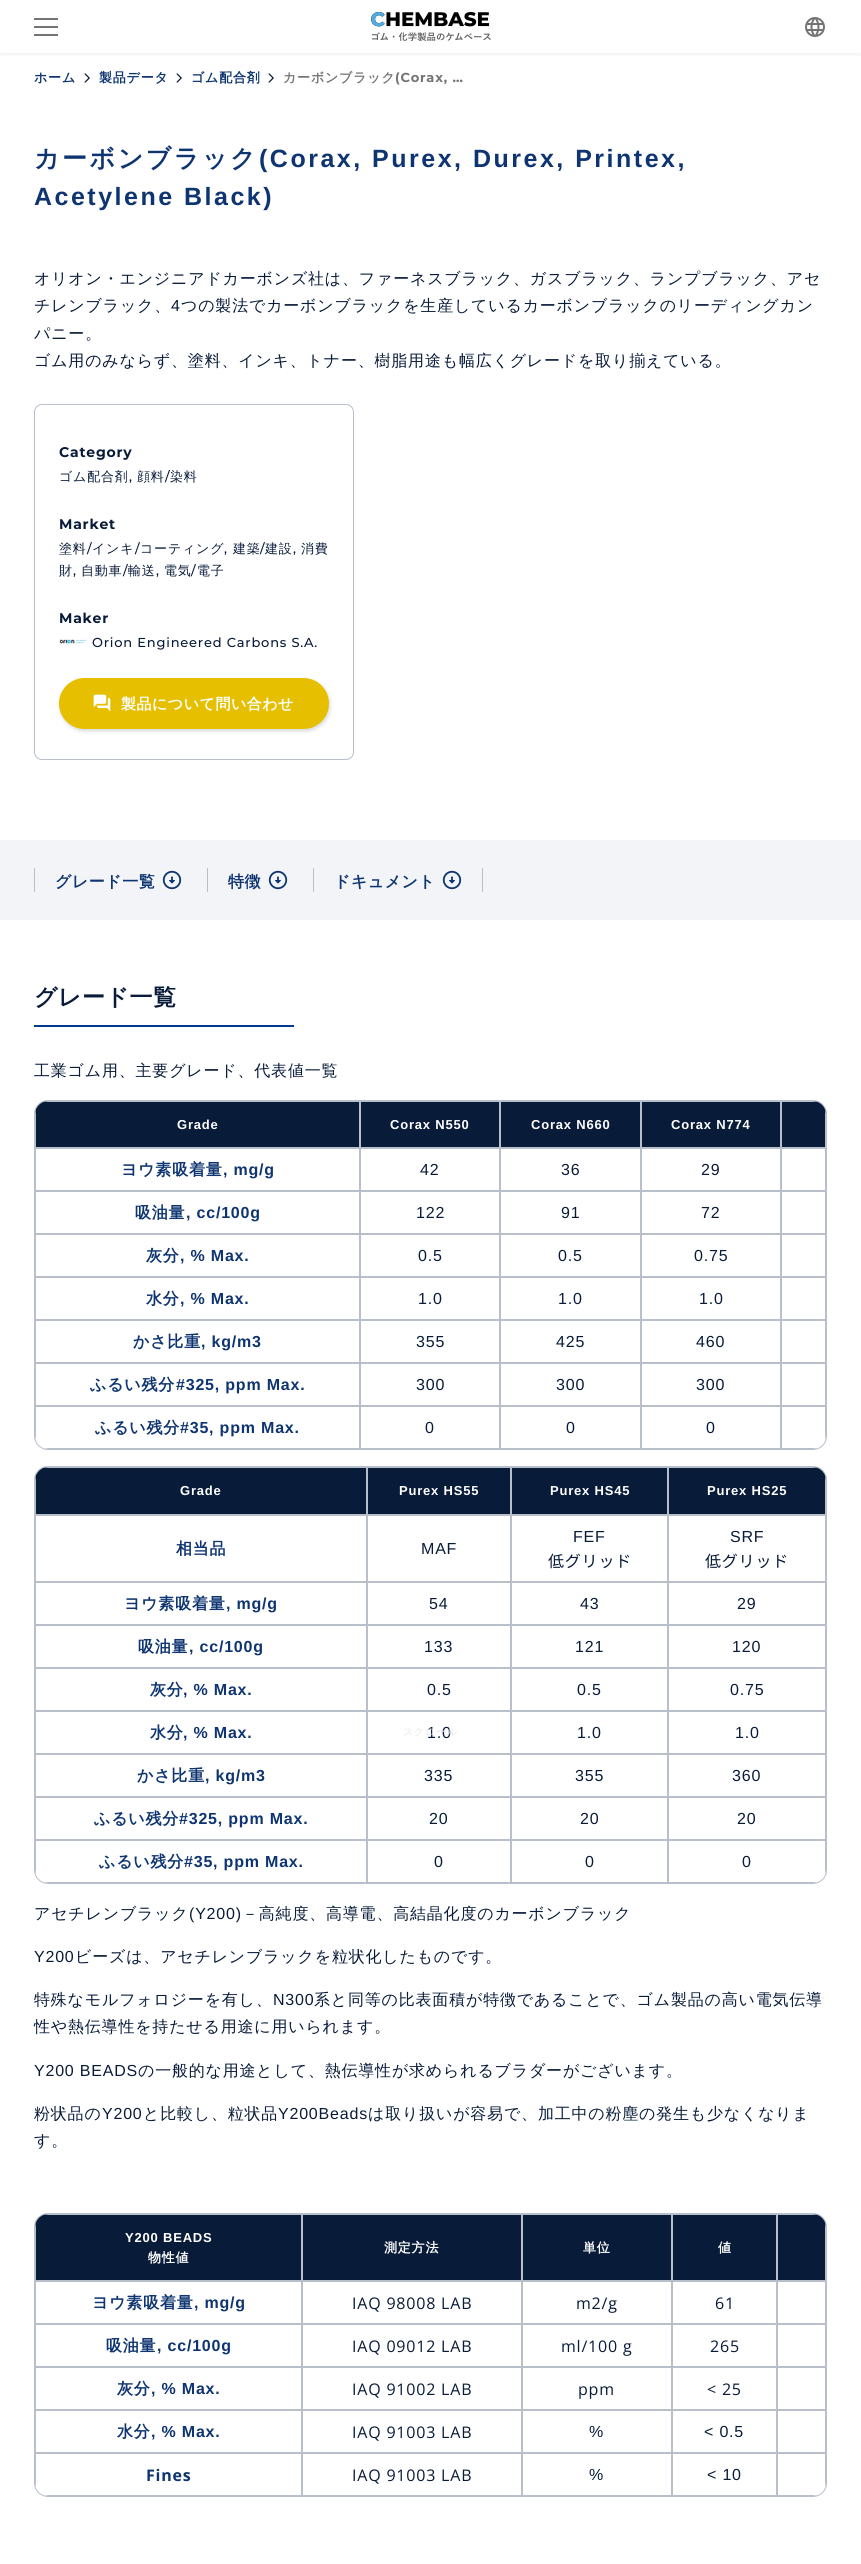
#include <cairo.h>
#include <math.h>
#include <stddef.h>

typedef struct { double x, y; const char *s; } line_t;
typedef struct { double x, y, w, h; unsigned color; } box_t;

static void ink(cairo_t *ctx, unsigned color) {
    cairo_set_source_rgb(ctx, (color >> 16) / 255.0, (color >> 8 & 255) / 255.0, (color & 255) / 255.0);
}

static void write_spaced(cairo_t *ctx, double x, double y, const char *s, double letter, double word) {
    cairo_move_to(ctx, x, y);
    while (*s) {
        char ch[5] = {0};
        int n = 0;
        do ch[n++] = *s++; while ((*s & 0xC0) == 0x80);
        cairo_show_text(ctx, ch);
        cairo_rel_move_to(ctx, letter + word * (*ch == ' '), 0);
    }
}

static void round_path(cairo_t *ctx, double x, double y, double w, double h, double r) {
    cairo_new_sub_path(ctx);
    cairo_arc(ctx, x + w - r, y + h - r, r, 0, M_PI / 2);
    cairo_arc(ctx, x + r, y + h - r, r, M_PI / 2, M_PI);
    cairo_arc(ctx, x + r, y + r, r, M_PI, 1.5 * M_PI);
    cairo_arc(ctx, x + w - r, y + r, r, 1.5 * M_PI, 2 * M_PI);
    cairo_close_path(ctx);
}

static void blur_box(cairo_t *ctx, double x, double y, double w, double h, double r, double blur, double alpha) {
    cairo_push_group_with_content(ctx, CAIRO_CONTENT_ALPHA);
    cairo_set_operator(ctx, CAIRO_OPERATOR_SOURCE);
    for (int i = 15; i >= -15 && fmin(w, h) + blur * i / 3 > 0; i -= 2) {
        double e = blur * i / 6;
        cairo_set_source_rgba(ctx, 0, 0, 0, alpha * erfc((i - 1) / 8.5) / 2);
        round_path(ctx, x - e, y - e, w + 2 * e, h + 2 * e, fmax(0, fmin(r + e + blur * .6, fmin(w, h) / 2 + e)));
        cairo_fill(ctx);
    }
    cairo_pattern_t *soft = cairo_pop_group(ctx);
    cairo_mask(ctx, soft);
    cairo_pattern_destroy(soft);
}

static void paste(cairo_t *ctx, const char *path, double x, double y, double w, double h) {
    cairo_surface_t *image = cairo_image_surface_create_from_png(path);
    cairo_save(ctx);
    cairo_set_source_surface(ctx, image, x, y);
    cairo_rectangle(ctx, x, y, w, h);
    cairo_fill(ctx);
    cairo_restore(ctx);
    cairo_surface_destroy(image);
}

int main(void) {
    cairo_surface_t *surface = cairo_image_surface_create(CAIRO_FORMAT_RGB24, 861, 2564);
    cairo_t *ctx = cairo_create(surface);
    cairo_font_options_t *options = cairo_font_options_create();
    cairo_font_options_set_hint_metrics(options, CAIRO_HINT_METRICS_OFF);
    cairo_font_options_set_hint_style(options, CAIRO_HINT_STYLE_NONE);
    cairo_set_font_options(ctx, options);
    cairo_set_miter_limit(ctx, 4);
    ink(ctx, 0xFFFFFF);
    cairo_paint(ctx);
    cairo_save(ctx);
    cairo_rectangle(ctx, 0, 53, 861, 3);
    cairo_clip(ctx);
    ink(ctx, 0x000000);
    blur_box(ctx, 0, -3, 861, 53, 0, 4, 0.24);
    cairo_restore(ctx);
    {
        static const box_t items[] = {
            {34, 18, 24, 2, 0x747474},
            {34, 26, 24, 2, 0x747474},
            {34, 34, 24, 2, 0x747474},
        };
        for (size_t i = 0; i < sizeof items / sizeof *items; i++) {
            ink(ctx, items[i].color);
            cairo_rectangle(ctx, items[i].x, items[i].y, items[i].w, items[i].h);
            cairo_fill(ctx);
        }
    }
    paste(ctx, "media/1.png", 371, 12, 120, 29);
    paste(ctx, "media/2.png", 805, 17, 20, 20);
    cairo_select_font_face(ctx, "WenQuanYi Zen Hei", CAIRO_FONT_SLANT_NORMAL, CAIRO_FONT_WEIGHT_BOLD);
    cairo_set_font_size(ctx, 13);
    ink(ctx, 0x0E3571);
    write_spaced(ctx, 34, 82, "ホーム", 0.8, 0);
    paste(ctx, "media/3.png", 84, 73, 6, 10);
    write_spaced(ctx, 99, 82, "製品データ", 0.8, 0);
    paste(ctx, "media/3.png", 176, 73, 6, 10);
    write_spaced(ctx, 191, 82, "ゴム配合剤", 0.8, 0);
    paste(ctx, "media/3.png", 268, 73, 6, 10);
    ink(ctx, 0x747474);
    write_spaced(ctx, 283, 82, "カーボンブラック", 0.8, 0);
    cairo_select_font_face(ctx, "Montserrat", CAIRO_FONT_SLANT_NORMAL, CAIRO_FONT_WEIGHT_BOLD);
    write_spaced(ctx, 395, 82, "(Corax, …", 0.8, 0);
    cairo_select_font_face(ctx, "WenQuanYi Zen Hei", CAIRO_FONT_SLANT_NORMAL, CAIRO_FONT_WEIGHT_BOLD);
    cairo_set_font_size(ctx, 25);
    ink(ctx, 0x0E3571);
    write_spaced(ctx, 34, 167, "カーボンブラック", 2.5, 0);
    cairo_select_font_face(ctx, "Liberation Sans", CAIRO_FONT_SLANT_NORMAL, CAIRO_FONT_WEIGHT_BOLD);
    write_spaced(ctx, 259, 167, "(Corax, Purex, Durex, Printex,", 2.5, 0);
    write_spaced(ctx, 34, 205, "Acetylene Black)", 2.5, 0);
    cairo_select_font_face(ctx, "WenQuanYi Zen Hei Medium", CAIRO_FONT_SLANT_NORMAL, CAIRO_FONT_WEIGHT_NORMAL);
    cairo_set_font_size(ctx, 16);
    ink(ctx, 0x081B39);
    write_spaced(ctx, 34, 284, "オリオン・エンジニアドカーボンズ社は、ファーネスブラック、ガスブラック、ランプブラック、アセ", 0.8, 0);
    write_spaced(ctx, 34, 311, "チレンブラック、", 0.8, 0);
    cairo_select_font_face(ctx, "Liberation Sans", CAIRO_FONT_SLANT_NORMAL, CAIRO_FONT_WEIGHT_NORMAL);
    write_spaced(ctx, 171, 311, "4", 0.8, 0);
    cairo_select_font_face(ctx, "WenQuanYi Zen Hei Medium", CAIRO_FONT_SLANT_NORMAL, CAIRO_FONT_WEIGHT_NORMAL);
    {
        static const line_t items[] = {
            {181, 311, "つの製法でカーボンブラックを生産しているカーボンブラックのリーディングカン"},
            {34, 339, "パニー。"},
            {34, 366, "ゴム用のみならず、塗料、インキ、トナー、樹脂用途も幅広くグレードを取り揃えている。"},
        };
        for (size_t i = 0; i < sizeof items / sizeof *items; i++) {
            write_spaced(ctx, items[i].x, items[i].y, items[i].s, 0.8, 0);
        }
    }
    round_path(ctx, 34.5, 404.5, 319, 355, 7.5);
    ink(ctx, 0xB8BFCB);
    cairo_set_line_width(ctx, 1);
    cairo_stroke(ctx);
    cairo_select_font_face(ctx, "Montserrat", CAIRO_FONT_SLANT_NORMAL, CAIRO_FONT_WEIGHT_BOLD);
    cairo_set_font_size(ctx, 14);
    ink(ctx, 0x081B39);
    write_spaced(ctx, 59, 457, "Category", 0.8, 0);
    cairo_select_font_face(ctx, "WenQuanYi Zen Hei Medium", CAIRO_FONT_SLANT_NORMAL, CAIRO_FONT_WEIGHT_NORMAL);
    cairo_set_font_size(ctx, 13);
    write_spaced(ctx, 59, 481, "ゴム配合剤", 0.8, 0);
    cairo_select_font_face(ctx, "Montserrat Medium", CAIRO_FONT_SLANT_NORMAL, CAIRO_FONT_WEIGHT_NORMAL);
    write_spaced(ctx, 129, 481, ",", 0.8, 0);
    cairo_select_font_face(ctx, "WenQuanYi Zen Hei Medium", CAIRO_FONT_SLANT_NORMAL, CAIRO_FONT_WEIGHT_NORMAL);
    write_spaced(ctx, 137, 481, "顔料", 0.8, 0);
    cairo_select_font_face(ctx, "Montserrat Medium", CAIRO_FONT_SLANT_NORMAL, CAIRO_FONT_WEIGHT_NORMAL);
    write_spaced(ctx, 165, 481, "/", 0.8, 0);
    cairo_select_font_face(ctx, "WenQuanYi Zen Hei Medium", CAIRO_FONT_SLANT_NORMAL, CAIRO_FONT_WEIGHT_NORMAL);
    write_spaced(ctx, 170, 481, "染料", 0.8, 0);
    cairo_select_font_face(ctx, "Montserrat", CAIRO_FONT_SLANT_NORMAL, CAIRO_FONT_WEIGHT_BOLD);
    cairo_set_font_size(ctx, 14);
    write_spaced(ctx, 59, 529, "Market", 0.8, 0);
    cairo_select_font_face(ctx, "WenQuanYi Zen Hei Medium", CAIRO_FONT_SLANT_NORMAL, CAIRO_FONT_WEIGHT_NORMAL);
    cairo_set_font_size(ctx, 13);
    write_spaced(ctx, 59, 553, "塗料", 0.8, 0);
    cairo_select_font_face(ctx, "Montserrat Medium", CAIRO_FONT_SLANT_NORMAL, CAIRO_FONT_WEIGHT_NORMAL);
    write_spaced(ctx, 87, 553, "/", 0.8, 0);
    cairo_select_font_face(ctx, "WenQuanYi Zen Hei Medium", CAIRO_FONT_SLANT_NORMAL, CAIRO_FONT_WEIGHT_NORMAL);
    write_spaced(ctx, 92, 553, "インキ", 0.8, 0);
    cairo_select_font_face(ctx, "Montserrat Medium", CAIRO_FONT_SLANT_NORMAL, CAIRO_FONT_WEIGHT_NORMAL);
    write_spaced(ctx, 135, 553, "/", 0.8, 0);
    cairo_select_font_face(ctx, "WenQuanYi Zen Hei Medium", CAIRO_FONT_SLANT_NORMAL, CAIRO_FONT_WEIGHT_NORMAL);
    write_spaced(ctx, 140, 553, "コーティング", 0.8, 0);
    cairo_select_font_face(ctx, "Montserrat Medium", CAIRO_FONT_SLANT_NORMAL, CAIRO_FONT_WEIGHT_NORMAL);
    write_spaced(ctx, 224, 553, ",", 0.8, 0);
    cairo_select_font_face(ctx, "WenQuanYi Zen Hei Medium", CAIRO_FONT_SLANT_NORMAL, CAIRO_FONT_WEIGHT_NORMAL);
    write_spaced(ctx, 233, 553, "建築", 0.8, 0);
    cairo_select_font_face(ctx, "Montserrat Medium", CAIRO_FONT_SLANT_NORMAL, CAIRO_FONT_WEIGHT_NORMAL);
    write_spaced(ctx, 260, 553, "/", 0.8, 0);
    cairo_select_font_face(ctx, "WenQuanYi Zen Hei Medium", CAIRO_FONT_SLANT_NORMAL, CAIRO_FONT_WEIGHT_NORMAL);
    write_spaced(ctx, 265, 553, "建設", 0.8, 0);
    cairo_select_font_face(ctx, "Montserrat Medium", CAIRO_FONT_SLANT_NORMAL, CAIRO_FONT_WEIGHT_NORMAL);
    write_spaced(ctx, 293, 553, ",", 0.8, 0);
    cairo_select_font_face(ctx, "WenQuanYi Zen Hei Medium", CAIRO_FONT_SLANT_NORMAL, CAIRO_FONT_WEIGHT_NORMAL);
    write_spaced(ctx, 301, 553, "消費", 0.8, 0);
    write_spaced(ctx, 59, 575, "財", 0.8, 0);
    cairo_select_font_face(ctx, "Montserrat Medium", CAIRO_FONT_SLANT_NORMAL, CAIRO_FONT_WEIGHT_NORMAL);
    write_spaced(ctx, 73, 575, ",", 0.8, 0);
    cairo_select_font_face(ctx, "WenQuanYi Zen Hei Medium", CAIRO_FONT_SLANT_NORMAL, CAIRO_FONT_WEIGHT_NORMAL);
    write_spaced(ctx, 81, 575, "自動車", 0.8, 0);
    cairo_select_font_face(ctx, "Montserrat Medium", CAIRO_FONT_SLANT_NORMAL, CAIRO_FONT_WEIGHT_NORMAL);
    write_spaced(ctx, 123, 575, "/", 0.8, 0);
    cairo_select_font_face(ctx, "WenQuanYi Zen Hei Medium", CAIRO_FONT_SLANT_NORMAL, CAIRO_FONT_WEIGHT_NORMAL);
    write_spaced(ctx, 128, 575, "輸送", 0.8, 0);
    cairo_select_font_face(ctx, "Montserrat Medium", CAIRO_FONT_SLANT_NORMAL, CAIRO_FONT_WEIGHT_NORMAL);
    write_spaced(ctx, 156, 575, ",", 0.8, 0);
    cairo_select_font_face(ctx, "WenQuanYi Zen Hei Medium", CAIRO_FONT_SLANT_NORMAL, CAIRO_FONT_WEIGHT_NORMAL);
    write_spaced(ctx, 164, 575, "電気", 0.8, 0);
    cairo_select_font_face(ctx, "Montserrat Medium", CAIRO_FONT_SLANT_NORMAL, CAIRO_FONT_WEIGHT_NORMAL);
    write_spaced(ctx, 191, 575, "/", 0.8, 0);
    cairo_select_font_face(ctx, "WenQuanYi Zen Hei Medium", CAIRO_FONT_SLANT_NORMAL, CAIRO_FONT_WEIGHT_NORMAL);
    write_spaced(ctx, 197, 575, "電子", 0.8, 0);
    cairo_select_font_face(ctx, "Montserrat", CAIRO_FONT_SLANT_NORMAL, CAIRO_FONT_WEIGHT_BOLD);
    cairo_set_font_size(ctx, 14);
    write_spaced(ctx, 59, 623, "Maker", 0.8, 0);
    paste(ctx, "media/4.png", 59, 639, 28, 5);
    cairo_select_font_face(ctx, "Montserrat Medium", CAIRO_FONT_SLANT_NORMAL, CAIRO_FONT_WEIGHT_NORMAL);
    cairo_set_font_size(ctx, 13);
    write_spaced(ctx, 92, 647, "Orion Engineered Carbons S.A.", 0.8, 0);
    ink(ctx, 0x000000);
    blur_box(ctx, 60, 680, 270, 51, 25.5, 2, 0.16);
    ink(ctx, 0xE6BF00);
    round_path(ctx, 59, 678, 270, 51, 25.5);
    cairo_fill(ctx);
    paste(ctx, "media/5.png", 93, 694, 18, 18);
    cairo_select_font_face(ctx, "WenQuanYi Zen Hei", CAIRO_FONT_SLANT_NORMAL, CAIRO_FONT_WEIGHT_BOLD);
    cairo_set_font_size(ctx, 15);
    ink(ctx, 0xFFFFFF);
    write_spaced(ctx, 121, 709, "製品について問い合わせ", 0.5, 0);
    ink(ctx, 0xF2F4F7);
    cairo_rectangle(ctx, 0, 840, 861, 80);
    cairo_fill(ctx);
    ink(ctx, 0xB8BFCB);
    cairo_rectangle(ctx, 34, 868, 1, 24);
    cairo_fill(ctx);
    cairo_set_font_size(ctx, 16);
    ink(ctx, 0x0E3571);
    write_spaced(ctx, 55, 887, "グレード一覧", 0.5, 0);
    paste(ctx, "media/6.png", 162, 870, 20, 20);
    ink(ctx, 0xB8BFCB);
    cairo_rectangle(ctx, 207, 868, 1, 24);
    cairo_fill(ctx);
    ink(ctx, 0x0E3571);
    write_spaced(ctx, 228, 887, "特徴", 0.5, 0);
    paste(ctx, "media/6.png", 268, 870, 20, 20);
    ink(ctx, 0xB8BFCB);
    cairo_rectangle(ctx, 482, 868, 1, 24);
    cairo_fill(ctx);
    cairo_rectangle(ctx, 313, 868, 1, 24);
    cairo_fill(ctx);
    ink(ctx, 0x0E3571);
    write_spaced(ctx, 334, 887, "ドキュメント", 0.5, 0);
    paste(ctx, "media/6.png", 442, 870, 20, 20);
    ink(ctx, 0x003991);
    cairo_rectangle(ctx, 34, 1025, 260, 2);
    cairo_fill(ctx);
    cairo_set_font_size(ctx, 23);
    ink(ctx, 0x081B39);
    write_spaced(ctx, 34, 1005, "グレード一覧", 0.5, 0);
    cairo_select_font_face(ctx, "WenQuanYi Zen Hei Medium", CAIRO_FONT_SLANT_NORMAL, CAIRO_FONT_WEIGHT_NORMAL);
    cairo_set_font_size(ctx, 16);
    write_spaced(ctx, 34, 1076, "工業ゴム用、主要グレード、代表値一覧", 0.8, 0);
    round_path(ctx, 34.5, 1100.5, 792, 349, 13.5);
    ink(ctx, 0xB8BFCB);
    cairo_stroke(ctx);
    ink(ctx, 0x081B39);
    cairo_new_path(ctx);
    cairo_move_to(ctx, 48, 1101);
    cairo_line_to(ctx, 360, 1101);
    cairo_line_to(ctx, 360, 1148);
    cairo_line_to(ctx, 35, 1148);
    cairo_line_to(ctx, 35, 1114);
    cairo_curve_to(ctx, 35, 1107, 41, 1101, 48, 1101);
    cairo_close_path(ctx);
    cairo_fill(ctx);
    ink(ctx, 0xB8BFCB);
    cairo_new_path(ctx);
    cairo_move_to(ctx, 48, 1101);
    cairo_line_to(ctx, 43, 1102);
    cairo_line_to(ctx, 359, 1102);
    cairo_line_to(ctx, 359, 1147);
    cairo_line_to(ctx, 36, 1147);
    cairo_line_to(ctx, 36, 1109);
    cairo_line_to(ctx, 35, 1114);
    cairo_line_to(ctx, 35, 1148);
    cairo_line_to(ctx, 360, 1148);
    cairo_line_to(ctx, 360, 1101);
    cairo_close_path(ctx);
    cairo_fill(ctx);
    cairo_select_font_face(ctx, "Liberation Sans", CAIRO_FONT_SLANT_NORMAL, CAIRO_FONT_WEIGHT_BOLD);
    cairo_set_font_size(ctx, 13);
    ink(ctx, 0xFFFFFF);
    write_spaced(ctx, 177, 1129, "Grade", 0.8, 0);
    ink(ctx, 0x081B39);
    cairo_rectangle(ctx, 360.5, 1101.5, 139, 46);
    cairo_fill_preserve(ctx);
    ink(ctx, 0xB8BFCB);
    cairo_stroke(ctx);
    ink(ctx, 0xFFFFFF);
    write_spaced(ctx, 390, 1129, "Corax N550", 0.8, 0);
    ink(ctx, 0x081B39);
    cairo_rectangle(ctx, 500.5, 1101.5, 140, 46);
    cairo_fill_preserve(ctx);
    ink(ctx, 0xB8BFCB);
    cairo_stroke(ctx);
    ink(ctx, 0xFFFFFF);
    write_spaced(ctx, 531, 1129, "Corax N660", 0.8, 0);
    ink(ctx, 0x081B39);
    cairo_rectangle(ctx, 641.5, 1101.5, 139, 46);
    cairo_fill_preserve(ctx);
    ink(ctx, 0xB8BFCB);
    cairo_stroke(ctx);
    ink(ctx, 0xFFFFFF);
    write_spaced(ctx, 671, 1129, "Corax N774", 0.8, 0);
    ink(ctx, 0x081B39);
    cairo_new_path(ctx);
    cairo_move_to(ctx, 781, 1101);
    cairo_line_to(ctx, 813, 1101);
    cairo_curve_to(ctx, 820, 1101, 826, 1107, 826, 1114);
    cairo_line_to(ctx, 826, 1148);
    cairo_line_to(ctx, 781, 1148);
    cairo_close_path(ctx);
    cairo_fill(ctx);
    ink(ctx, 0xB8BFCB);
    cairo_new_path(ctx);
    cairo_move_to(ctx, 781, 1101);
    cairo_line_to(ctx, 781, 1148);
    cairo_line_to(ctx, 826, 1148);
    cairo_line_to(ctx, 826, 1114);
    cairo_line_to(ctx, 825, 1109);
    cairo_line_to(ctx, 825, 1147);
    cairo_line_to(ctx, 782, 1147);
    cairo_line_to(ctx, 782, 1102);
    cairo_line_to(ctx, 818, 1102);
    cairo_line_to(ctx, 813, 1101);
    cairo_close_path(ctx);
    cairo_fill(ctx);
    cairo_rectangle(ctx, 35.5, 1148.5, 324, 42);
    cairo_stroke(ctx);
    cairo_select_font_face(ctx, "WenQuanYi Zen Hei", CAIRO_FONT_SLANT_NORMAL, CAIRO_FONT_WEIGHT_BOLD);
    cairo_set_font_size(ctx, 16);
    ink(ctx, 0x0E3571);
    write_spaced(ctx, 121, 1175, "ヨウ素吸着量", 0.8, 0);
    cairo_select_font_face(ctx, "Liberation Sans", CAIRO_FONT_SLANT_NORMAL, CAIRO_FONT_WEIGHT_BOLD);
    write_spaced(ctx, 223, 1175, ", mg/g", 0.8, 0);
    cairo_rectangle(ctx, 360.5, 1148.5, 139, 42);
    ink(ctx, 0xB8BFCB);
    cairo_stroke(ctx);
    cairo_select_font_face(ctx, "Liberation Sans", CAIRO_FONT_SLANT_NORMAL, CAIRO_FONT_WEIGHT_NORMAL);
    ink(ctx, 0x081B39);
    write_spaced(ctx, 420, 1175, "42", 0.8, 0);
    cairo_rectangle(ctx, 500.5, 1148.5, 140, 42);
    ink(ctx, 0xB8BFCB);
    cairo_stroke(ctx);
    ink(ctx, 0x081B39);
    write_spaced(ctx, 561, 1175, "36", 0.8, 0);
    cairo_rectangle(ctx, 641.5, 1148.5, 139, 42);
    ink(ctx, 0xB8BFCB);
    cairo_stroke(ctx);
    ink(ctx, 0x081B39);
    write_spaced(ctx, 701, 1175, "29", 0.8, 0);
    cairo_rectangle(ctx, 781.5, 1148.5, 44, 42);
    ink(ctx, 0xB8BFCB);
    cairo_stroke(ctx);
    cairo_rectangle(ctx, 35.5, 1191.5, 324, 42);
    cairo_stroke(ctx);
    cairo_select_font_face(ctx, "WenQuanYi Zen Hei", CAIRO_FONT_SLANT_NORMAL, CAIRO_FONT_WEIGHT_BOLD);
    ink(ctx, 0x0E3571);
    write_spaced(ctx, 135, 1218, "吸油量", 0.8, 0);
    cairo_select_font_face(ctx, "Liberation Sans", CAIRO_FONT_SLANT_NORMAL, CAIRO_FONT_WEIGHT_BOLD);
    write_spaced(ctx, 186, 1218, ", cc/100g", 0.8, 0);
    cairo_rectangle(ctx, 360.5, 1191.5, 139, 42);
    ink(ctx, 0xB8BFCB);
    cairo_stroke(ctx);
    cairo_select_font_face(ctx, "Liberation Sans", CAIRO_FONT_SLANT_NORMAL, CAIRO_FONT_WEIGHT_NORMAL);
    ink(ctx, 0x081B39);
    write_spaced(ctx, 416, 1218, "122", 0.8, 0);
    cairo_rectangle(ctx, 500.5, 1191.5, 140, 42);
    ink(ctx, 0xB8BFCB);
    cairo_stroke(ctx);
    ink(ctx, 0x081B39);
    write_spaced(ctx, 561, 1218, "91", 0.8, 0);
    cairo_rectangle(ctx, 641.5, 1191.5, 139, 42);
    ink(ctx, 0xB8BFCB);
    cairo_stroke(ctx);
    ink(ctx, 0x081B39);
    write_spaced(ctx, 701, 1218, "72", 0.8, 0);
    cairo_rectangle(ctx, 781.5, 1191.5, 44, 42);
    ink(ctx, 0xB8BFCB);
    cairo_stroke(ctx);
    cairo_rectangle(ctx, 35.5, 1234.5, 324, 42);
    cairo_stroke(ctx);
    cairo_select_font_face(ctx, "WenQuanYi Zen Hei", CAIRO_FONT_SLANT_NORMAL, CAIRO_FONT_WEIGHT_BOLD);
    ink(ctx, 0x0E3571);
    write_spaced(ctx, 146, 1261, "灰分", 0.8, 0);
    cairo_select_font_face(ctx, "Liberation Sans", CAIRO_FONT_SLANT_NORMAL, CAIRO_FONT_WEIGHT_BOLD);
    write_spaced(ctx, 180, 1261, ", % Max.", 0.8, 0);
    cairo_rectangle(ctx, 360.5, 1234.5, 139, 42);
    ink(ctx, 0xB8BFCB);
    cairo_stroke(ctx);
    cairo_select_font_face(ctx, "Liberation Sans", CAIRO_FONT_SLANT_NORMAL, CAIRO_FONT_WEIGHT_NORMAL);
    ink(ctx, 0x081B39);
    write_spaced(ctx, 418, 1261, "0.5", 0.8, 0);
    cairo_rectangle(ctx, 500.5, 1234.5, 140, 42);
    ink(ctx, 0xB8BFCB);
    cairo_stroke(ctx);
    ink(ctx, 0x081B39);
    write_spaced(ctx, 558, 1261, "0.5", 0.8, 0);
    cairo_rectangle(ctx, 641.5, 1234.5, 139, 42);
    ink(ctx, 0xB8BFCB);
    cairo_stroke(ctx);
    ink(ctx, 0x081B39);
    write_spaced(ctx, 694, 1261, "0.75", 0.8, 0);
    cairo_rectangle(ctx, 781.5, 1234.5, 44, 42);
    ink(ctx, 0xB8BFCB);
    cairo_stroke(ctx);
    cairo_rectangle(ctx, 35.5, 1277.5, 324, 42);
    cairo_stroke(ctx);
    cairo_select_font_face(ctx, "WenQuanYi Zen Hei", CAIRO_FONT_SLANT_NORMAL, CAIRO_FONT_WEIGHT_BOLD);
    ink(ctx, 0x0E3571);
    write_spaced(ctx, 146, 1304, "水分", 0.8, 0);
    cairo_select_font_face(ctx, "Liberation Sans", CAIRO_FONT_SLANT_NORMAL, CAIRO_FONT_WEIGHT_BOLD);
    write_spaced(ctx, 180, 1304, ", % Max.", 0.8, 0);
    cairo_rectangle(ctx, 360.5, 1277.5, 139, 42);
    ink(ctx, 0xB8BFCB);
    cairo_stroke(ctx);
    cairo_select_font_face(ctx, "Liberation Sans", CAIRO_FONT_SLANT_NORMAL, CAIRO_FONT_WEIGHT_NORMAL);
    ink(ctx, 0x081B39);
    write_spaced(ctx, 418, 1304, "1.0", 0.8, 0);
    cairo_rectangle(ctx, 500.5, 1277.5, 140, 42);
    ink(ctx, 0xB8BFCB);
    cairo_stroke(ctx);
    ink(ctx, 0x081B39);
    write_spaced(ctx, 558, 1304, "1.0", 0.8, 0);
    cairo_rectangle(ctx, 641.5, 1277.5, 139, 42);
    ink(ctx, 0xB8BFCB);
    cairo_stroke(ctx);
    ink(ctx, 0x081B39);
    write_spaced(ctx, 699, 1304, "1.0", 0.8, 0);
    cairo_rectangle(ctx, 781.5, 1277.5, 44, 42);
    ink(ctx, 0xB8BFCB);
    cairo_stroke(ctx);
    cairo_rectangle(ctx, 35.5, 1320.5, 324, 42);
    cairo_stroke(ctx);
    cairo_select_font_face(ctx, "WenQuanYi Zen Hei", CAIRO_FONT_SLANT_NORMAL, CAIRO_FONT_WEIGHT_BOLD);
    ink(ctx, 0x0E3571);
    write_spaced(ctx, 133, 1347, "かさ比重", 0.8, 0);
    cairo_select_font_face(ctx, "Liberation Sans", CAIRO_FONT_SLANT_NORMAL, CAIRO_FONT_WEIGHT_BOLD);
    write_spaced(ctx, 201, 1347, ", kg/m3", 0.8, 0);
    cairo_rectangle(ctx, 360.5, 1320.5, 139, 42);
    ink(ctx, 0xB8BFCB);
    cairo_stroke(ctx);
    cairo_select_font_face(ctx, "Liberation Sans", CAIRO_FONT_SLANT_NORMAL, CAIRO_FONT_WEIGHT_NORMAL);
    ink(ctx, 0x081B39);
    write_spaced(ctx, 416, 1347, "355", 0.8, 0);
    cairo_rectangle(ctx, 500.5, 1320.5, 140, 42);
    ink(ctx, 0xB8BFCB);
    cairo_stroke(ctx);
    ink(ctx, 0x081B39);
    write_spaced(ctx, 556, 1347, "425", 0.8, 0);
    cairo_rectangle(ctx, 641.5, 1320.5, 139, 42);
    ink(ctx, 0xB8BFCB);
    cairo_stroke(ctx);
    ink(ctx, 0x081B39);
    write_spaced(ctx, 696, 1347, "460", 0.8, 0);
    cairo_rectangle(ctx, 781.5, 1320.5, 44, 42);
    ink(ctx, 0xB8BFCB);
    cairo_stroke(ctx);
    cairo_rectangle(ctx, 35.5, 1363.5, 324, 42);
    cairo_stroke(ctx);
    cairo_select_font_face(ctx, "WenQuanYi Zen Hei", CAIRO_FONT_SLANT_NORMAL, CAIRO_FONT_WEIGHT_BOLD);
    ink(ctx, 0x0E3571);
    write_spaced(ctx, 90, 1390, "ふるい残分", 0.8, 0);
    cairo_select_font_face(ctx, "Liberation Sans", CAIRO_FONT_SLANT_NORMAL, CAIRO_FONT_WEIGHT_BOLD);
    write_spaced(ctx, 176, 1390, "#325, ppm Max.", 0.8, 0);
    cairo_rectangle(ctx, 360.5, 1363.5, 139, 42);
    ink(ctx, 0xB8BFCB);
    cairo_stroke(ctx);
    cairo_select_font_face(ctx, "Liberation Sans", CAIRO_FONT_SLANT_NORMAL, CAIRO_FONT_WEIGHT_NORMAL);
    ink(ctx, 0x081B39);
    write_spaced(ctx, 416, 1390, "300", 0.8, 0);
    cairo_rectangle(ctx, 500.5, 1363.5, 140, 42);
    ink(ctx, 0xB8BFCB);
    cairo_stroke(ctx);
    ink(ctx, 0x081B39);
    write_spaced(ctx, 556, 1390, "300", 0.8, 0);
    cairo_rectangle(ctx, 641.5, 1363.5, 139, 42);
    ink(ctx, 0xB8BFCB);
    cairo_stroke(ctx);
    ink(ctx, 0x081B39);
    write_spaced(ctx, 696, 1390, "300", 0.8, 0);
    cairo_rectangle(ctx, 781.5, 1363.5, 44, 42);
    ink(ctx, 0xB8BFCB);
    cairo_stroke(ctx);
    cairo_new_path(ctx);
    cairo_move_to(ctx, 36, 1407);
    cairo_line_to(ctx, 359, 1407);
    cairo_line_to(ctx, 359, 1448);
    cairo_line_to(ctx, 43, 1448);
    cairo_line_to(ctx, 48, 1449);
    cairo_line_to(ctx, 360, 1449);
    cairo_line_to(ctx, 360, 1406);
    cairo_line_to(ctx, 35, 1406);
    cairo_line_to(ctx, 35, 1436);
    cairo_line_to(ctx, 36, 1441);
    cairo_close_path(ctx);
    cairo_fill(ctx);
    cairo_select_font_face(ctx, "WenQuanYi Zen Hei", CAIRO_FONT_SLANT_NORMAL, CAIRO_FONT_WEIGHT_BOLD);
    ink(ctx, 0x0E3571);
    write_spaced(ctx, 95, 1433, "ふるい残分", 0.8, 0);
    cairo_select_font_face(ctx, "Liberation Sans", CAIRO_FONT_SLANT_NORMAL, CAIRO_FONT_WEIGHT_BOLD);
    write_spaced(ctx, 180, 1433, "#35, ppm Max.", 0.8, 0);
    cairo_rectangle(ctx, 360.5, 1406.5, 139, 42);
    ink(ctx, 0xB8BFCB);
    cairo_stroke(ctx);
    cairo_select_font_face(ctx, "Liberation Sans", CAIRO_FONT_SLANT_NORMAL, CAIRO_FONT_WEIGHT_NORMAL);
    ink(ctx, 0x081B39);
    write_spaced(ctx, 425, 1433, "0", 0.8, 0);
    cairo_rectangle(ctx, 500.5, 1406.5, 140, 42);
    ink(ctx, 0xB8BFCB);
    cairo_stroke(ctx);
    ink(ctx, 0x081B39);
    write_spaced(ctx, 566, 1433, "0", 0.8, 0);
    cairo_rectangle(ctx, 641.5, 1406.5, 139, 42);
    ink(ctx, 0xB8BFCB);
    cairo_stroke(ctx);
    ink(ctx, 0x081B39);
    write_spaced(ctx, 706, 1433, "0", 0.8, 0);
    ink(ctx, 0xB8BFCB);
    cairo_new_path(ctx);
    cairo_move_to(ctx, 781, 1406);
    cairo_line_to(ctx, 781, 1449);
    cairo_line_to(ctx, 813, 1449);
    cairo_line_to(ctx, 818, 1448);
    cairo_line_to(ctx, 782, 1448);
    cairo_line_to(ctx, 782, 1407);
    cairo_line_to(ctx, 825, 1407);
    cairo_line_to(ctx, 825, 1441);
    cairo_line_to(ctx, 826, 1436);
    cairo_line_to(ctx, 826, 1406);
    cairo_close_path(ctx);
    cairo_fill(ctx);
    round_path(ctx, 34.5, 1466.5, 792, 417, 13.5);
    cairo_stroke(ctx);
    ink(ctx, 0x081B39);
    cairo_new_path(ctx);
    cairo_move_to(ctx, 48, 1467);
    cairo_line_to(ctx, 367, 1467);
    cairo_line_to(ctx, 367, 1515);
    cairo_line_to(ctx, 35, 1515);
    cairo_line_to(ctx, 35, 1480);
    cairo_curve_to(ctx, 35, 1473, 41, 1467, 48, 1467);
    cairo_close_path(ctx);
    cairo_fill(ctx);
    ink(ctx, 0xB8BFCB);
    cairo_new_path(ctx);
    cairo_move_to(ctx, 48, 1467);
    cairo_line_to(ctx, 43, 1468);
    cairo_line_to(ctx, 366, 1468);
    cairo_line_to(ctx, 366, 1514);
    cairo_line_to(ctx, 36, 1514);
    cairo_line_to(ctx, 36, 1475);
    cairo_line_to(ctx, 35, 1480);
    cairo_line_to(ctx, 35, 1515);
    cairo_line_to(ctx, 367, 1515);
    cairo_line_to(ctx, 367, 1467);
    cairo_close_path(ctx);
    cairo_fill(ctx);
    cairo_select_font_face(ctx, "Liberation Sans", CAIRO_FONT_SLANT_NORMAL, CAIRO_FONT_WEIGHT_BOLD);
    cairo_set_font_size(ctx, 13);
    ink(ctx, 0xFFFFFF);
    write_spaced(ctx, 180, 1495, "Grade", 0.8, 0);
    ink(ctx, 0x081B39);
    cairo_rectangle(ctx, 367.5, 1467.5, 143, 47);
    cairo_fill_preserve(ctx);
    ink(ctx, 0xB8BFCB);
    cairo_stroke(ctx);
    ink(ctx, 0xFFFFFF);
    write_spaced(ctx, 399, 1495, "Purex HS55", 0.8, 0);
    ink(ctx, 0x081B39);
    cairo_rectangle(ctx, 511.5, 1467.5, 156, 47);
    cairo_fill_preserve(ctx);
    ink(ctx, 0xB8BFCB);
    cairo_stroke(ctx);
    ink(ctx, 0xFFFFFF);
    write_spaced(ctx, 550, 1495, "Purex HS45", 0.8, 0);
    ink(ctx, 0x081B39);
    cairo_new_path(ctx);
    cairo_move_to(ctx, 668, 1467);
    cairo_line_to(ctx, 813, 1467);
    cairo_curve_to(ctx, 820, 1467, 826, 1473, 826, 1480);
    cairo_line_to(ctx, 826, 1515);
    cairo_line_to(ctx, 668, 1515);
    cairo_close_path(ctx);
    cairo_fill(ctx);
    ink(ctx, 0xB8BFCB);
    cairo_new_path(ctx);
    cairo_move_to(ctx, 668, 1467);
    cairo_line_to(ctx, 668, 1515);
    cairo_line_to(ctx, 826, 1515);
    cairo_line_to(ctx, 826, 1480);
    cairo_line_to(ctx, 825, 1475);
    cairo_line_to(ctx, 825, 1514);
    cairo_line_to(ctx, 669, 1514);
    cairo_line_to(ctx, 669, 1468);
    cairo_line_to(ctx, 818, 1468);
    cairo_line_to(ctx, 813, 1467);
    cairo_close_path(ctx);
    cairo_fill(ctx);
    ink(ctx, 0xFFFFFF);
    write_spaced(ctx, 707, 1495, "Purex HS25", 0.8, 0);
    cairo_rectangle(ctx, 35.5, 1515.5, 331, 66);
    ink(ctx, 0xB8BFCB);
    cairo_stroke(ctx);
    cairo_select_font_face(ctx, "WenQuanYi Zen Hei", CAIRO_FONT_SLANT_NORMAL, CAIRO_FONT_WEIGHT_BOLD);
    cairo_set_font_size(ctx, 16);
    ink(ctx, 0x0E3571);
    write_spaced(ctx, 176, 1554, "相当品", 0.8, 0);
    cairo_rectangle(ctx, 367.5, 1515.5, 143, 66);
    ink(ctx, 0xB8BFCB);
    cairo_stroke(ctx);
    cairo_select_font_face(ctx, "Liberation Sans", CAIRO_FONT_SLANT_NORMAL, CAIRO_FONT_WEIGHT_NORMAL);
    ink(ctx, 0x081B39);
    write_spaced(ctx, 421, 1554, "MAF", 0.8, 0);
    cairo_rectangle(ctx, 511.5, 1515.5, 156, 66);
    ink(ctx, 0xB8BFCB);
    cairo_stroke(ctx);
    ink(ctx, 0x081B39);
    write_spaced(ctx, 573, 1542, "FEF", 0.8, 0);
    cairo_select_font_face(ctx, "Noto Sans JP", CAIRO_FONT_SLANT_NORMAL, CAIRO_FONT_WEIGHT_NORMAL);
    write_spaced(ctx, 548, 1567, "低グリッド", 0.8, 0);
    cairo_rectangle(ctx, 668.5, 1515.5, 157, 66);
    ink(ctx, 0xB8BFCB);
    cairo_stroke(ctx);
    cairo_select_font_face(ctx, "Liberation Sans", CAIRO_FONT_SLANT_NORMAL, CAIRO_FONT_WEIGHT_NORMAL);
    ink(ctx, 0x081B39);
    write_spaced(ctx, 730, 1542, "SRF", 0.8, 0);
    cairo_select_font_face(ctx, "Noto Sans JP", CAIRO_FONT_SLANT_NORMAL, CAIRO_FONT_WEIGHT_NORMAL);
    write_spaced(ctx, 705, 1567, "低グリッド", 0.8, 0);
    cairo_rectangle(ctx, 35.5, 1582.5, 331, 42);
    ink(ctx, 0xB8BFCB);
    cairo_stroke(ctx);
    cairo_select_font_face(ctx, "WenQuanYi Zen Hei", CAIRO_FONT_SLANT_NORMAL, CAIRO_FONT_WEIGHT_BOLD);
    ink(ctx, 0x0E3571);
    write_spaced(ctx, 124, 1609, "ヨウ素吸着量", 0.8, 0);
    cairo_select_font_face(ctx, "Liberation Sans", CAIRO_FONT_SLANT_NORMAL, CAIRO_FONT_WEIGHT_BOLD);
    write_spaced(ctx, 226, 1609, ", mg/g", 0.8, 0);
    cairo_rectangle(ctx, 367.5, 1582.5, 143, 42);
    ink(ctx, 0xB8BFCB);
    cairo_stroke(ctx);
    cairo_select_font_face(ctx, "Liberation Sans", CAIRO_FONT_SLANT_NORMAL, CAIRO_FONT_WEIGHT_NORMAL);
    ink(ctx, 0x081B39);
    write_spaced(ctx, 429, 1609, "54", 0.8, 0);
    cairo_rectangle(ctx, 511.5, 1582.5, 156, 42);
    ink(ctx, 0xB8BFCB);
    cairo_stroke(ctx);
    ink(ctx, 0x081B39);
    write_spaced(ctx, 580, 1609, "43", 0.8, 0);
    cairo_rectangle(ctx, 668.5, 1582.5, 157, 42);
    ink(ctx, 0xB8BFCB);
    cairo_stroke(ctx);
    ink(ctx, 0x081B39);
    write_spaced(ctx, 737, 1609, "29", 0.8, 0);
    cairo_rectangle(ctx, 35.5, 1625.5, 331, 42);
    ink(ctx, 0xB8BFCB);
    cairo_stroke(ctx);
    cairo_select_font_face(ctx, "WenQuanYi Zen Hei", CAIRO_FONT_SLANT_NORMAL, CAIRO_FONT_WEIGHT_BOLD);
    ink(ctx, 0x0E3571);
    write_spaced(ctx, 138, 1652, "吸油量", 0.8, 0);
    cairo_select_font_face(ctx, "Liberation Sans", CAIRO_FONT_SLANT_NORMAL, CAIRO_FONT_WEIGHT_BOLD);
    write_spaced(ctx, 189, 1652, ", cc/100g", 0.8, 0);
    cairo_rectangle(ctx, 367.5, 1625.5, 143, 42);
    ink(ctx, 0xB8BFCB);
    cairo_stroke(ctx);
    cairo_select_font_face(ctx, "Liberation Sans", CAIRO_FONT_SLANT_NORMAL, CAIRO_FONT_WEIGHT_NORMAL);
    ink(ctx, 0x081B39);
    write_spaced(ctx, 424, 1652, "133", 0.8, 0);
    cairo_rectangle(ctx, 511.5, 1625.5, 156, 42);
    ink(ctx, 0xB8BFCB);
    cairo_stroke(ctx);
    ink(ctx, 0x081B39);
    write_spaced(ctx, 575, 1652, "121", 0.8, 0);
    cairo_rectangle(ctx, 668.5, 1625.5, 157, 42);
    ink(ctx, 0xB8BFCB);
    cairo_stroke(ctx);
    ink(ctx, 0x081B39);
    write_spaced(ctx, 732, 1652, "120", 0.8, 0);
    cairo_rectangle(ctx, 35.5, 1668.5, 331, 42);
    ink(ctx, 0xB8BFCB);
    cairo_stroke(ctx);
    cairo_select_font_face(ctx, "WenQuanYi Zen Hei", CAIRO_FONT_SLANT_NORMAL, CAIRO_FONT_WEIGHT_BOLD);
    ink(ctx, 0x0E3571);
    write_spaced(ctx, 150, 1695, "灰分", 0.8, 0);
    cairo_select_font_face(ctx, "Liberation Sans", CAIRO_FONT_SLANT_NORMAL, CAIRO_FONT_WEIGHT_BOLD);
    write_spaced(ctx, 183, 1695, ", % Max.", 0.8, 0);
    cairo_rectangle(ctx, 367.5, 1668.5, 143, 42);
    ink(ctx, 0xB8BFCB);
    cairo_stroke(ctx);
    cairo_select_font_face(ctx, "Liberation Sans", CAIRO_FONT_SLANT_NORMAL, CAIRO_FONT_WEIGHT_NORMAL);
    ink(ctx, 0x081B39);
    write_spaced(ctx, 427, 1695, "0.5", 0.8, 0);
    cairo_rectangle(ctx, 511.5, 1668.5, 156, 42);
    ink(ctx, 0xB8BFCB);
    cairo_stroke(ctx);
    ink(ctx, 0x081B39);
    write_spaced(ctx, 577, 1695, "0.5", 0.8, 0);
    cairo_rectangle(ctx, 668.5, 1668.5, 157, 42);
    ink(ctx, 0xB8BFCB);
    cairo_stroke(ctx);
    ink(ctx, 0x081B39);
    write_spaced(ctx, 730, 1695, "0.75", 0.8, 0);
    cairo_rectangle(ctx, 35.5, 1711.5, 331, 42);
    ink(ctx, 0xB8BFCB);
    cairo_stroke(ctx);
    cairo_select_font_face(ctx, "WenQuanYi Zen Hei", CAIRO_FONT_SLANT_NORMAL, CAIRO_FONT_WEIGHT_BOLD);
    ink(ctx, 0x0E3571);
    write_spaced(ctx, 150, 1738, "水分", 0.8, 0);
    cairo_select_font_face(ctx, "Liberation Sans", CAIRO_FONT_SLANT_NORMAL, CAIRO_FONT_WEIGHT_BOLD);
    write_spaced(ctx, 183, 1738, ", % Max.", 0.8, 0);
    cairo_rectangle(ctx, 367.5, 1711.5, 143, 42);
    ink(ctx, 0xB8BFCB);
    cairo_stroke(ctx);
    cairo_select_font_face(ctx, "Liberation Sans", CAIRO_FONT_SLANT_NORMAL, CAIRO_FONT_WEIGHT_NORMAL);
    ink(ctx, 0x081B39);
    write_spaced(ctx, 427, 1738, "1.0", 0.8, 0);
    cairo_rectangle(ctx, 511.5, 1711.5, 156, 42);
    ink(ctx, 0xB8BFCB);
    cairo_stroke(ctx);
    ink(ctx, 0x081B39);
    write_spaced(ctx, 577, 1738, "1.0", 0.8, 0);
    cairo_rectangle(ctx, 668.5, 1711.5, 157, 42);
    ink(ctx, 0xB8BFCB);
    cairo_stroke(ctx);
    ink(ctx, 0x081B39);
    write_spaced(ctx, 735, 1738, "1.0", 0.8, 0);
    cairo_rectangle(ctx, 35.5, 1754.5, 331, 42);
    ink(ctx, 0xB8BFCB);
    cairo_stroke(ctx);
    cairo_select_font_face(ctx, "WenQuanYi Zen Hei", CAIRO_FONT_SLANT_NORMAL, CAIRO_FONT_WEIGHT_BOLD);
    ink(ctx, 0x0E3571);
    write_spaced(ctx, 137, 1781, "かさ比重", 0.8, 0);
    cairo_select_font_face(ctx, "Liberation Sans", CAIRO_FONT_SLANT_NORMAL, CAIRO_FONT_WEIGHT_BOLD);
    write_spaced(ctx, 205, 1781, ", kg/m3", 0.8, 0);
    cairo_rectangle(ctx, 367.5, 1754.5, 143, 42);
    ink(ctx, 0xB8BFCB);
    cairo_stroke(ctx);
    cairo_select_font_face(ctx, "Liberation Sans", CAIRO_FONT_SLANT_NORMAL, CAIRO_FONT_WEIGHT_NORMAL);
    ink(ctx, 0x081B39);
    write_spaced(ctx, 424, 1781, "335", 0.8, 0);
    cairo_rectangle(ctx, 511.5, 1754.5, 156, 42);
    ink(ctx, 0xB8BFCB);
    cairo_stroke(ctx);
    ink(ctx, 0x081B39);
    write_spaced(ctx, 575, 1781, "355", 0.8, 0);
    cairo_rectangle(ctx, 668.5, 1754.5, 157, 42);
    ink(ctx, 0xB8BFCB);
    cairo_stroke(ctx);
    ink(ctx, 0x081B39);
    write_spaced(ctx, 732, 1781, "360", 0.8, 0);
    cairo_rectangle(ctx, 35.5, 1797.5, 331, 42);
    ink(ctx, 0xB8BFCB);
    cairo_stroke(ctx);
    cairo_select_font_face(ctx, "WenQuanYi Zen Hei", CAIRO_FONT_SLANT_NORMAL, CAIRO_FONT_WEIGHT_BOLD);
    ink(ctx, 0x0E3571);
    write_spaced(ctx, 94, 1824, "ふるい残分", 0.8, 0);
    cairo_select_font_face(ctx, "Liberation Sans", CAIRO_FONT_SLANT_NORMAL, CAIRO_FONT_WEIGHT_BOLD);
    write_spaced(ctx, 179, 1824, "#325, ppm Max.", 0.8, 0);
    cairo_rectangle(ctx, 367.5, 1797.5, 143, 42);
    ink(ctx, 0xB8BFCB);
    cairo_stroke(ctx);
    cairo_select_font_face(ctx, "Liberation Sans", CAIRO_FONT_SLANT_NORMAL, CAIRO_FONT_WEIGHT_NORMAL);
    ink(ctx, 0x081B39);
    write_spaced(ctx, 429, 1824, "20", 0.8, 0);
    cairo_rectangle(ctx, 511.5, 1797.5, 156, 42);
    ink(ctx, 0xB8BFCB);
    cairo_stroke(ctx);
    ink(ctx, 0x081B39);
    write_spaced(ctx, 580, 1824, "20", 0.8, 0);
    cairo_rectangle(ctx, 668.5, 1797.5, 157, 42);
    ink(ctx, 0xB8BFCB);
    cairo_stroke(ctx);
    ink(ctx, 0x081B39);
    write_spaced(ctx, 737, 1824, "20", 0.8, 0);
    ink(ctx, 0xB8BFCB);
    cairo_new_path(ctx);
    cairo_move_to(ctx, 36, 1841);
    cairo_line_to(ctx, 366, 1841);
    cairo_line_to(ctx, 366, 1882);
    cairo_line_to(ctx, 43, 1882);
    cairo_line_to(ctx, 48, 1883);
    cairo_line_to(ctx, 367, 1883);
    cairo_line_to(ctx, 367, 1840);
    cairo_line_to(ctx, 35, 1840);
    cairo_line_to(ctx, 35, 1870);
    cairo_line_to(ctx, 36, 1875);
    cairo_close_path(ctx);
    cairo_fill(ctx);
    cairo_select_font_face(ctx, "WenQuanYi Zen Hei", CAIRO_FONT_SLANT_NORMAL, CAIRO_FONT_WEIGHT_BOLD);
    ink(ctx, 0x0E3571);
    write_spaced(ctx, 99, 1867, "ふるい残分", 0.8, 0);
    cairo_select_font_face(ctx, "Liberation Sans", CAIRO_FONT_SLANT_NORMAL, CAIRO_FONT_WEIGHT_BOLD);
    write_spaced(ctx, 184, 1867, "#35, ppm Max.", 0.8, 0);
    cairo_rectangle(ctx, 367.5, 1840.5, 143, 42);
    ink(ctx, 0xB8BFCB);
    cairo_stroke(ctx);
    cairo_select_font_face(ctx, "Liberation Sans", CAIRO_FONT_SLANT_NORMAL, CAIRO_FONT_WEIGHT_NORMAL);
    ink(ctx, 0x081B39);
    write_spaced(ctx, 434, 1867, "0", 0.8, 0);
    cairo_rectangle(ctx, 511.5, 1840.5, 156, 42);
    ink(ctx, 0xB8BFCB);
    cairo_stroke(ctx);
    ink(ctx, 0x081B39);
    write_spaced(ctx, 585, 1867, "0", 0.8, 0);
    ink(ctx, 0xB8BFCB);
    cairo_new_path(ctx);
    cairo_move_to(ctx, 668, 1840);
    cairo_line_to(ctx, 668, 1883);
    cairo_line_to(ctx, 813, 1883);
    cairo_line_to(ctx, 818, 1882);
    cairo_line_to(ctx, 669, 1882);
    cairo_line_to(ctx, 669, 1841);
    cairo_line_to(ctx, 825, 1841);
    cairo_line_to(ctx, 825, 1875);
    cairo_line_to(ctx, 826, 1870);
    cairo_line_to(ctx, 826, 1840);
    cairo_close_path(ctx);
    cairo_fill(ctx);
    ink(ctx, 0x081B39);
    write_spaced(ctx, 742, 1867, "0", 0.8, 0);
    cairo_select_font_face(ctx, "WenQuanYi Zen Hei Medium", CAIRO_FONT_SLANT_NORMAL, CAIRO_FONT_WEIGHT_NORMAL);
    cairo_set_font_size(ctx, 10);
    ink(ctx, 0xE5E7EA);
    write_spaced(ctx, 403, 1735, "スクロール", 0.8, 0);
    cairo_set_font_size(ctx, 16);
    ink(ctx, 0x081B39);
    write_spaced(ctx, 34, 1919, "アセチレンブラック", 0.8, 0);
    cairo_select_font_face(ctx, "Liberation Sans", CAIRO_FONT_SLANT_NORMAL, CAIRO_FONT_WEIGHT_NORMAL);
    write_spaced(ctx, 189, 1919, "(Y200)", 0.8, 0);
    cairo_select_font_face(ctx, "WenQuanYi Zen Hei Medium", CAIRO_FONT_SLANT_NORMAL, CAIRO_FONT_WEIGHT_NORMAL);
    write_spaced(ctx, 242, 1919, "－高純度、高導電、高結晶化度のカーボンブラック", 0.8, 0);
    cairo_select_font_face(ctx, "Liberation Sans", CAIRO_FONT_SLANT_NORMAL, CAIRO_FONT_WEIGHT_NORMAL);
    write_spaced(ctx, 34, 1962, "Y200", 0.8, 0);
    cairo_select_font_face(ctx, "WenQuanYi Zen Hei Medium", CAIRO_FONT_SLANT_NORMAL, CAIRO_FONT_WEIGHT_NORMAL);
    write_spaced(ctx, 75, 1962, "ビーズは、アセチレンブラックを粒状化したものです。", 0.8, 0);
    write_spaced(ctx, 34, 2005, "特殊なモルフォロジーを有し、", 0.8, 0);
    cairo_select_font_face(ctx, "Liberation Sans", CAIRO_FONT_SLANT_NORMAL, CAIRO_FONT_WEIGHT_NORMAL);
    write_spaced(ctx, 273, 2005, "N300", 0.8, 0);
    cairo_select_font_face(ctx, "WenQuanYi Zen Hei Medium", CAIRO_FONT_SLANT_NORMAL, CAIRO_FONT_WEIGHT_NORMAL);
    write_spaced(ctx, 314, 2005, "系と同等の比表面積が特徴であることで、ゴム製品の高い電気伝導", 0.8, 0);
    write_spaced(ctx, 34, 2032, "性や熱伝導性を持たせる用途に用いられます。", 0.8, 0);
    cairo_select_font_face(ctx, "Liberation Sans", CAIRO_FONT_SLANT_NORMAL, CAIRO_FONT_WEIGHT_NORMAL);
    write_spaced(ctx, 34, 2076, "Y200 BEADS", 0.8, 0);
    cairo_select_font_face(ctx, "WenQuanYi Zen Hei Medium", CAIRO_FONT_SLANT_NORMAL, CAIRO_FONT_WEIGHT_NORMAL);
    write_spaced(ctx, 138, 2076, "の一般的な用途として、熱伝導性が求められるブラダーがございます。", 0.8, 0);
    write_spaced(ctx, 34, 2119, "粉状品の", 0.8, 0);
    cairo_select_font_face(ctx, "Liberation Sans", CAIRO_FONT_SLANT_NORMAL, CAIRO_FONT_WEIGHT_NORMAL);
    write_spaced(ctx, 102, 2119, "Y200", 0.8, 0);
    cairo_select_font_face(ctx, "WenQuanYi Zen Hei Medium", CAIRO_FONT_SLANT_NORMAL, CAIRO_FONT_WEIGHT_NORMAL);
    write_spaced(ctx, 143, 2119, "と比較し、粒状品", 0.8, 0);
    cairo_select_font_face(ctx, "Liberation Sans", CAIRO_FONT_SLANT_NORMAL, CAIRO_FONT_WEIGHT_NORMAL);
    write_spaced(ctx, 278, 2119, "Y200Beads", 0.8, 0);
    cairo_select_font_face(ctx, "WenQuanYi Zen Hei Medium", CAIRO_FONT_SLANT_NORMAL, CAIRO_FONT_WEIGHT_NORMAL);
    write_spaced(ctx, 368, 2119, "は取り扱いが容易で、加工中の粉塵の発生も少なくなりま", 0.8, 0);
    write_spaced(ctx, 34, 2146, "す。", 0.8, 0);
    round_path(ctx, 34.5, 2213.5, 792, 283, 13.5);
    ink(ctx, 0xB8BFCB);
    cairo_stroke(ctx);
    ink(ctx, 0x081B39);
    cairo_new_path(ctx);
    cairo_move_to(ctx, 48, 2214);
    cairo_line_to(ctx, 302, 2214);
    cairo_line_to(ctx, 302, 2281);
    cairo_line_to(ctx, 35, 2281);
    cairo_line_to(ctx, 35, 2227);
    cairo_curve_to(ctx, 35, 2220, 41, 2214, 48, 2214);
    cairo_close_path(ctx);
    cairo_fill(ctx);
    ink(ctx, 0xB8BFCB);
    cairo_new_path(ctx);
    cairo_move_to(ctx, 48, 2214);
    cairo_line_to(ctx, 43, 2215);
    cairo_line_to(ctx, 301, 2215);
    cairo_line_to(ctx, 301, 2280);
    cairo_line_to(ctx, 36, 2280);
    cairo_line_to(ctx, 36, 2222);
    cairo_line_to(ctx, 35, 2227);
    cairo_line_to(ctx, 35, 2281);
    cairo_line_to(ctx, 302, 2281);
    cairo_line_to(ctx, 302, 2214);
    cairo_close_path(ctx);
    cairo_fill(ctx);
    cairo_select_font_face(ctx, "Liberation Sans", CAIRO_FONT_SLANT_NORMAL, CAIRO_FONT_WEIGHT_BOLD);
    cairo_set_font_size(ctx, 13);
    ink(ctx, 0xFFFFFF);
    write_spaced(ctx, 125, 2242, "Y200 BEADS", 0.8, 0);
    cairo_select_font_face(ctx, "WenQuanYi Zen Hei", CAIRO_FONT_SLANT_NORMAL, CAIRO_FONT_WEIGHT_BOLD);
    write_spaced(ctx, 148, 2262, "物性値", 0.8, 0);
    ink(ctx, 0x081B39);
    cairo_rectangle(ctx, 302.5, 2214.5, 219, 66);
    cairo_fill_preserve(ctx);
    ink(ctx, 0xB8BFCB);
    cairo_stroke(ctx);
    ink(ctx, 0xFFFFFF);
    write_spaced(ctx, 384, 2252, "測定方法", 0.8, 0);
    ink(ctx, 0x081B39);
    cairo_rectangle(ctx, 522.5, 2214.5, 149, 66);
    cairo_fill_preserve(ctx);
    ink(ctx, 0xB8BFCB);
    cairo_stroke(ctx);
    ink(ctx, 0xFFFFFF);
    write_spaced(ctx, 583, 2252, "単位", 0.8, 0);
    ink(ctx, 0x081B39);
    cairo_rectangle(ctx, 672.5, 2214.5, 104, 66);
    cairo_fill_preserve(ctx);
    ink(ctx, 0xB8BFCB);
    cairo_stroke(ctx);
    ink(ctx, 0xFFFFFF);
    write_spaced(ctx, 718, 2252, "値", 0.8, 0);
    ink(ctx, 0x081B39);
    cairo_new_path(ctx);
    cairo_move_to(ctx, 777, 2214);
    cairo_line_to(ctx, 813, 2214);
    cairo_curve_to(ctx, 820, 2214, 826, 2220, 826, 2227);
    cairo_line_to(ctx, 826, 2281);
    cairo_line_to(ctx, 777, 2281);
    cairo_close_path(ctx);
    cairo_fill(ctx);
    ink(ctx, 0xB8BFCB);
    cairo_new_path(ctx);
    cairo_move_to(ctx, 777, 2214);
    cairo_line_to(ctx, 777, 2281);
    cairo_line_to(ctx, 826, 2281);
    cairo_line_to(ctx, 826, 2227);
    cairo_line_to(ctx, 825, 2222);
    cairo_line_to(ctx, 825, 2280);
    cairo_line_to(ctx, 778, 2280);
    cairo_line_to(ctx, 778, 2215);
    cairo_line_to(ctx, 818, 2215);
    cairo_line_to(ctx, 813, 2214);
    cairo_close_path(ctx);
    cairo_fill(ctx);
    cairo_rectangle(ctx, 35.5, 2281.5, 266, 42);
    cairo_stroke(ctx);
    cairo_set_font_size(ctx, 16);
    ink(ctx, 0x0E3571);
    write_spaced(ctx, 92, 2308, "ヨウ素吸着量", 0.8, 0);
    cairo_select_font_face(ctx, "Liberation Sans", CAIRO_FONT_SLANT_NORMAL, CAIRO_FONT_WEIGHT_BOLD);
    write_spaced(ctx, 194, 2308, ", mg/g", 0.8, 0);
    cairo_rectangle(ctx, 302.5, 2281.5, 219, 42);
    ink(ctx, 0xB8BFCB);
    cairo_stroke(ctx);
    cairo_select_font_face(ctx, "Open Sans", CAIRO_FONT_SLANT_NORMAL, CAIRO_FONT_WEIGHT_NORMAL);
    ink(ctx, 0x081B39);
    write_spaced(ctx, 352, 2309, "IAQ 98008 LAB", 0.8, 0);
    cairo_rectangle(ctx, 522.5, 2281.5, 149, 42);
    ink(ctx, 0xB8BFCB);
    cairo_stroke(ctx);
    ink(ctx, 0x081B39);
    write_spaced(ctx, 576, 2309, "m2/g", 0.8, 0);
    cairo_rectangle(ctx, 672.5, 2281.5, 104, 42);
    ink(ctx, 0xB8BFCB);
    cairo_stroke(ctx);
    ink(ctx, 0x081B39);
    write_spaced(ctx, 715, 2309, "61", 0.8, 0);
    cairo_rectangle(ctx, 777.5, 2281.5, 48, 42);
    ink(ctx, 0xB8BFCB);
    cairo_stroke(ctx);
    cairo_rectangle(ctx, 35.5, 2324.5, 266, 42);
    cairo_stroke(ctx);
    cairo_select_font_face(ctx, "WenQuanYi Zen Hei", CAIRO_FONT_SLANT_NORMAL, CAIRO_FONT_WEIGHT_BOLD);
    ink(ctx, 0x0E3571);
    write_spaced(ctx, 106, 2351, "吸油量", 0.8, 0);
    cairo_select_font_face(ctx, "Liberation Sans", CAIRO_FONT_SLANT_NORMAL, CAIRO_FONT_WEIGHT_BOLD);
    write_spaced(ctx, 157, 2351, ", cc/100g", 0.8, 0);
    cairo_rectangle(ctx, 302.5, 2324.5, 219, 42);
    ink(ctx, 0xB8BFCB);
    cairo_stroke(ctx);
    cairo_select_font_face(ctx, "Open Sans", CAIRO_FONT_SLANT_NORMAL, CAIRO_FONT_WEIGHT_NORMAL);
    ink(ctx, 0x081B39);
    write_spaced(ctx, 352, 2352, "IAQ 09012 LAB", 0.8, 0);
    cairo_rectangle(ctx, 522.5, 2324.5, 149, 42);
    ink(ctx, 0xB8BFCB);
    cairo_stroke(ctx);
    ink(ctx, 0x081B39);
    write_spaced(ctx, 561, 2352, "ml/100 g", 0.8, 0);
    cairo_rectangle(ctx, 672.5, 2324.5, 104, 42);
    ink(ctx, 0xB8BFCB);
    cairo_stroke(ctx);
    ink(ctx, 0x081B39);
    write_spaced(ctx, 710, 2352, "265", 0.8, 0);
    cairo_rectangle(ctx, 777.5, 2324.5, 48, 42);
    ink(ctx, 0xB8BFCB);
    cairo_stroke(ctx);
    cairo_rectangle(ctx, 35.5, 2367.5, 266, 42);
    cairo_stroke(ctx);
    cairo_select_font_face(ctx, "WenQuanYi Zen Hei", CAIRO_FONT_SLANT_NORMAL, CAIRO_FONT_WEIGHT_BOLD);
    ink(ctx, 0x0E3571);
    write_spaced(ctx, 117, 2394, "灰分", 0.8, 0);
    cairo_select_font_face(ctx, "Liberation Sans", CAIRO_FONT_SLANT_NORMAL, CAIRO_FONT_WEIGHT_BOLD);
    write_spaced(ctx, 151, 2394, ", % Max.", 0.8, 0);
    cairo_rectangle(ctx, 302.5, 2367.5, 219, 42);
    ink(ctx, 0xB8BFCB);
    cairo_stroke(ctx);
    cairo_select_font_face(ctx, "Open Sans", CAIRO_FONT_SLANT_NORMAL, CAIRO_FONT_WEIGHT_NORMAL);
    ink(ctx, 0x081B39);
    write_spaced(ctx, 352, 2395, "IAQ 91002 LAB", 0.8, 0);
    cairo_rectangle(ctx, 522.5, 2367.5, 149, 42);
    ink(ctx, 0xB8BFCB);
    cairo_stroke(ctx);
    ink(ctx, 0x081B39);
    write_spaced(ctx, 578, 2395, "ppm", 0.8, 0);
    cairo_rectangle(ctx, 672.5, 2367.5, 104, 42);
    ink(ctx, 0xB8BFCB);
    cairo_stroke(ctx);
    ink(ctx, 0x081B39);
    write_spaced(ctx, 707, 2395, "< 25", 0.8, 0);
    cairo_rectangle(ctx, 777.5, 2367.5, 48, 42);
    ink(ctx, 0xB8BFCB);
    cairo_stroke(ctx);
    cairo_rectangle(ctx, 35.5, 2410.5, 266, 42);
    cairo_stroke(ctx);
    cairo_select_font_face(ctx, "WenQuanYi Zen Hei", CAIRO_FONT_SLANT_NORMAL, CAIRO_FONT_WEIGHT_BOLD);
    ink(ctx, 0x0E3571);
    write_spaced(ctx, 117, 2437, "水分", 0.8, 0);
    cairo_select_font_face(ctx, "Liberation Sans", CAIRO_FONT_SLANT_NORMAL, CAIRO_FONT_WEIGHT_BOLD);
    write_spaced(ctx, 151, 2437, ", % Max.", 0.8, 0);
    cairo_rectangle(ctx, 302.5, 2410.5, 219, 42);
    ink(ctx, 0xB8BFCB);
    cairo_stroke(ctx);
    cairo_select_font_face(ctx, "Open Sans", CAIRO_FONT_SLANT_NORMAL, CAIRO_FONT_WEIGHT_NORMAL);
    ink(ctx, 0x081B39);
    write_spaced(ctx, 352, 2438, "IAQ 91003 LAB", 0.8, 0);
    cairo_rectangle(ctx, 522.5, 2410.5, 149, 42);
    ink(ctx, 0xB8BFCB);
    cairo_stroke(ctx);
    cairo_select_font_face(ctx, "Liberation Sans", CAIRO_FONT_SLANT_NORMAL, CAIRO_FONT_WEIGHT_NORMAL);
    ink(ctx, 0x081B39);
    write_spaced(ctx, 589, 2437, "%", 0.8, 0);
    cairo_rectangle(ctx, 672.5, 2410.5, 104, 42);
    ink(ctx, 0xB8BFCB);
    cairo_stroke(ctx);
    ink(ctx, 0x081B39);
    write_spaced(ctx, 704, 2437, "< 0.5", 0.8, 0);
    cairo_rectangle(ctx, 777.5, 2410.5, 48, 42);
    ink(ctx, 0xB8BFCB);
    cairo_stroke(ctx);
    cairo_new_path(ctx);
    cairo_move_to(ctx, 36, 2454);
    cairo_line_to(ctx, 301, 2454);
    cairo_line_to(ctx, 301, 2495);
    cairo_line_to(ctx, 43, 2495);
    cairo_line_to(ctx, 48, 2496);
    cairo_line_to(ctx, 302, 2496);
    cairo_line_to(ctx, 302, 2453);
    cairo_line_to(ctx, 35, 2453);
    cairo_line_to(ctx, 35, 2483);
    cairo_line_to(ctx, 36, 2488);
    cairo_close_path(ctx);
    cairo_fill(ctx);
    cairo_select_font_face(ctx, "Open Sans", CAIRO_FONT_SLANT_NORMAL, CAIRO_FONT_WEIGHT_BOLD);
    ink(ctx, 0x0E3571);
    write_spaced(ctx, 146, 2481, "Fines", 0.8, 0);
    cairo_rectangle(ctx, 302.5, 2453.5, 219, 42);
    ink(ctx, 0xB8BFCB);
    cairo_stroke(ctx);
    cairo_select_font_face(ctx, "Open Sans", CAIRO_FONT_SLANT_NORMAL, CAIRO_FONT_WEIGHT_NORMAL);
    ink(ctx, 0x081B39);
    write_spaced(ctx, 352, 2481, "IAQ 91003 LAB", 0.8, 0);
    cairo_rectangle(ctx, 522.5, 2453.5, 149, 42);
    ink(ctx, 0xB8BFCB);
    cairo_stroke(ctx);
    cairo_select_font_face(ctx, "Liberation Sans", CAIRO_FONT_SLANT_NORMAL, CAIRO_FONT_WEIGHT_NORMAL);
    ink(ctx, 0x081B39);
    write_spaced(ctx, 589, 2480, "%", 0.8, 0);
    cairo_rectangle(ctx, 672.5, 2453.5, 104, 42);
    ink(ctx, 0xB8BFCB);
    cairo_stroke(ctx);
    ink(ctx, 0x081B39);
    write_spaced(ctx, 707, 2480, "< 10", 0.8, 0);
    ink(ctx, 0xB8BFCB);
    cairo_new_path(ctx);
    cairo_move_to(ctx, 777, 2453);
    cairo_line_to(ctx, 777, 2496);
    cairo_line_to(ctx, 813, 2496);
    cairo_line_to(ctx, 818, 2495);
    cairo_line_to(ctx, 778, 2495);
    cairo_line_to(ctx, 778, 2454);
    cairo_line_to(ctx, 825, 2454);
    cairo_line_to(ctx, 825, 2488);
    cairo_line_to(ctx, 826, 2483);
    cairo_line_to(ctx, 826, 2453);
    cairo_close_path(ctx);
    cairo_fill(ctx);
    cairo_surface_write_to_png(surface, "image.png");
    cairo_font_options_destroy(options);
    cairo_destroy(ctx);
    cairo_surface_destroy(surface);
    return 0;
}
